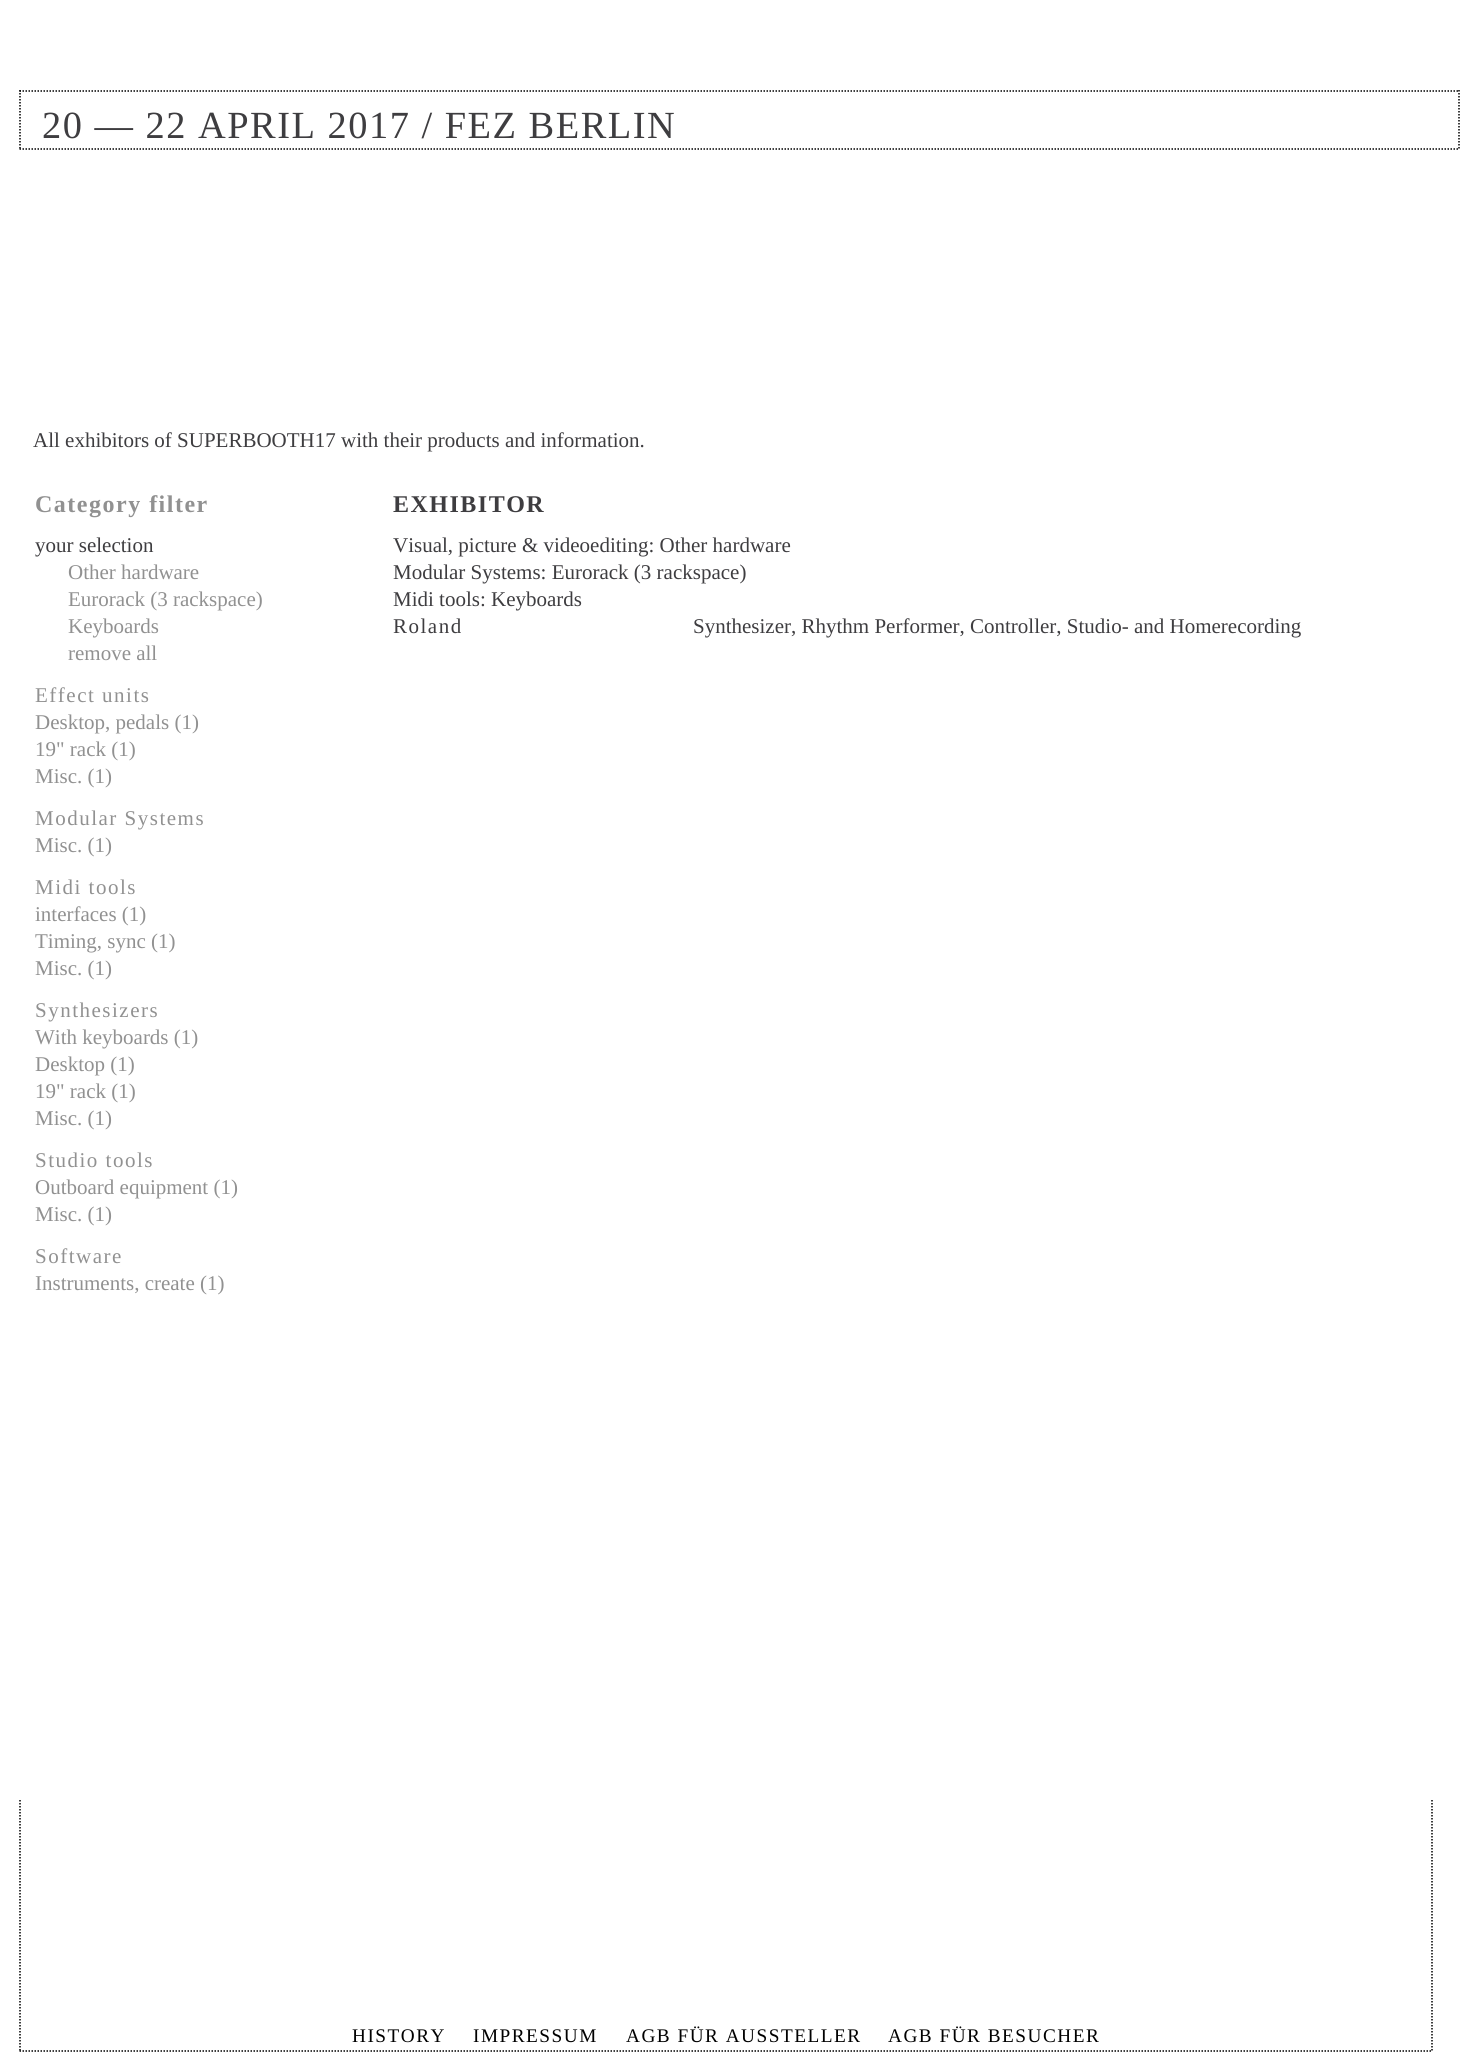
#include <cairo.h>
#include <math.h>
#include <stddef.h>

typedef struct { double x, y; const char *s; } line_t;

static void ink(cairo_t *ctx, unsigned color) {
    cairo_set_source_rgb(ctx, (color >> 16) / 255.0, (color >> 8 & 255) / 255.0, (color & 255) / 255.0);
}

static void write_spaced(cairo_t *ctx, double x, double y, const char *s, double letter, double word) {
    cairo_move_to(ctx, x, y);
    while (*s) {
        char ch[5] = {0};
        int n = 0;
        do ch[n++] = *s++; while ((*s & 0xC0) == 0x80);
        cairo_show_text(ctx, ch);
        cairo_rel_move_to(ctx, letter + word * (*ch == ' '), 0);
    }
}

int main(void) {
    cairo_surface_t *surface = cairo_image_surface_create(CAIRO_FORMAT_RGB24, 1479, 2052);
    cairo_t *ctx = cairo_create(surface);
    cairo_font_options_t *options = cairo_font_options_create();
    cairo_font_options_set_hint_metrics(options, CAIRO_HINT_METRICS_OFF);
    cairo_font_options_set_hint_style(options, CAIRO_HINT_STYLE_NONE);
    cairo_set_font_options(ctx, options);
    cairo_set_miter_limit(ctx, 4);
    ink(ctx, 0xFFFFFF);
    cairo_paint(ctx);
    cairo_new_path(ctx);
    cairo_move_to(ctx, 19.5, 91);
    cairo_line_to(ctx, 1459.5, 91);
    ink(ctx, 0x000000);
    cairo_set_line_width(ctx, 1.5);
    cairo_set_dash(ctx, (double[]){1.5, 1.5}, 2, 0);
    cairo_stroke(ctx);
    cairo_new_path(ctx);
    cairo_move_to(ctx, 1459, 90);
    cairo_line_to(ctx, 1459, 150);
    cairo_stroke(ctx);
    cairo_new_path(ctx);
    cairo_move_to(ctx, 19.5, 149);
    cairo_line_to(ctx, 1459.5, 149);
    cairo_stroke(ctx);
    cairo_new_path(ctx);
    cairo_move_to(ctx, 20, 90);
    cairo_line_to(ctx, 20, 150);
    cairo_stroke(ctx);
    cairo_select_font_face(ctx, "Liberation Serif", CAIRO_FONT_SLANT_NORMAL, CAIRO_FONT_WEIGHT_NORMAL);
    cairo_set_font_size(ctx, 38.4);
    ink(ctx, 0x3E3D40);
    write_spaced(ctx, 42, 138, "20 — 22 APRIL 2017 / FEZ BERLIN", 1.5, 0);
    cairo_set_font_size(ctx, 21);
    cairo_move_to(ctx, 33, 447);
    cairo_show_text(ctx, "All exhibitors of SUPERBOOTH17 with their products and information.");
    cairo_select_font_face(ctx, "Liberation Serif", CAIRO_FONT_SLANT_NORMAL, CAIRO_FONT_WEIGHT_BOLD);
    cairo_set_font_size(ctx, 24);
    ink(ctx, 0x919191);
    write_spaced(ctx, 35, 512, "Category filter", 1.5, 0);
    cairo_select_font_face(ctx, "Liberation Serif", CAIRO_FONT_SLANT_NORMAL, CAIRO_FONT_WEIGHT_NORMAL);
    cairo_set_font_size(ctx, 21);
    ink(ctx, 0x3E3D40);
    cairo_move_to(ctx, 35, 552);
    cairo_show_text(ctx, "your selection");
    ink(ctx, 0x919191);
    {
        static const line_t items[] = {
            {68, 579, "Other hardware"},
            {68, 606, "Eurorack (3 rackspace)"},
            {68, 633, "Keyboards"},
            {68, 660, "remove all"},
        };
        for (size_t i = 0; i < sizeof items / sizeof *items; i++) {
            cairo_move_to(ctx, items[i].x, items[i].y);
            cairo_show_text(ctx, items[i].s);
        }
    }
    write_spaced(ctx, 35, 702, "Effect units", 1.5, 0);
    {
        static const line_t items[] = {
            {35, 729, "Desktop, pedals (1)"},
            {35, 756, "19\" rack (1)"},
            {35, 783, "Misc. (1)"},
        };
        for (size_t i = 0; i < sizeof items / sizeof *items; i++) {
            cairo_move_to(ctx, items[i].x, items[i].y);
            cairo_show_text(ctx, items[i].s);
        }
    }
    write_spaced(ctx, 35, 825, "Modular Systems", 1.5, 0);
    cairo_move_to(ctx, 35, 852);
    cairo_show_text(ctx, "Misc. (1)");
    write_spaced(ctx, 35, 894, "Midi tools", 1.5, 0);
    cairo_move_to(ctx, 35, 921);
    cairo_show_text(ctx, "interfaces (1)");
    cairo_save(ctx);
    cairo_rectangle(ctx, 35, 491, 330, 822);
    cairo_clip(ctx);
    cairo_move_to(ctx, 35, 948);
    cairo_show_text(ctx, "Timing, sync (1)");
    cairo_restore(ctx);
    cairo_move_to(ctx, 35, 975);
    cairo_show_text(ctx, "Misc. (1)");
    write_spaced(ctx, 35, 1017, "Synthesizers", 1.5, 0);
    {
        static const line_t items[] = {
            {35, 1044, "With keyboards (1)"},
            {35, 1071, "Desktop (1)"},
            {35, 1098, "19\" rack (1)"},
            {35, 1125, "Misc. (1)"},
        };
        for (size_t i = 0; i < sizeof items / sizeof *items; i++) {
            cairo_move_to(ctx, items[i].x, items[i].y);
            cairo_show_text(ctx, items[i].s);
        }
    }
    write_spaced(ctx, 35, 1167, "Studio tools", 1.5, 0);
    cairo_move_to(ctx, 35, 1194);
    cairo_show_text(ctx, "Outboard equipment (1)");
    cairo_move_to(ctx, 35, 1221);
    cairo_show_text(ctx, "Misc. (1)");
    write_spaced(ctx, 35, 1263, "Software", 1.5, 0);
    cairo_move_to(ctx, 35, 1290);
    cairo_show_text(ctx, "Instruments, create (1)");
    cairo_select_font_face(ctx, "Liberation Serif", CAIRO_FONT_SLANT_NORMAL, CAIRO_FONT_WEIGHT_BOLD);
    cairo_set_font_size(ctx, 24);
    ink(ctx, 0x3E3D40);
    write_spaced(ctx, 393, 512, "EXHIBITOR", 1.5, 0);
    cairo_select_font_face(ctx, "Liberation Serif", CAIRO_FONT_SLANT_NORMAL, CAIRO_FONT_WEIGHT_NORMAL);
    cairo_set_font_size(ctx, 21);
    {
        static const line_t items[] = {
            {393, 552, "Visual, picture & videoediting: Other hardware"},
            {393, 579, "Modular Systems: Eurorack (3 rackspace)"},
            {393, 606, "Midi tools: Keyboards"},
        };
        for (size_t i = 0; i < sizeof items / sizeof *items; i++) {
            cairo_move_to(ctx, items[i].x, items[i].y);
            cairo_show_text(ctx, items[i].s);
        }
    }
    write_spaced(ctx, 393, 633, "Roland", 1.5, 0);
    cairo_move_to(ctx, 693, 633);
    cairo_show_text(ctx, "Synthesizer, Rhythm Performer, Controller, Studio- and Homerecording");
    cairo_new_path(ctx);
    cairo_move_to(ctx, 1432, 1800);
    cairo_line_to(ctx, 1432, 2052);
    ink(ctx, 0x000000);
    cairo_stroke(ctx);
    cairo_new_path(ctx);
    cairo_move_to(ctx, 19.5, 2051);
    cairo_line_to(ctx, 1432.5, 2051);
    cairo_stroke(ctx);
    cairo_new_path(ctx);
    cairo_move_to(ctx, 20, 1800);
    cairo_line_to(ctx, 20, 2052);
    cairo_stroke(ctx);
    cairo_set_font_size(ctx, 19.25);
    {
        static const line_t items[] = {
            {352, 2042, "HISTORY"},
            {473, 2042, "IMPRESSUM"},
            {626, 2042, "AGB FÜR AUSSTELLER"},
            {888, 2042, "AGB FÜR BESUCHER"},
        };
        for (size_t i = 0; i < sizeof items / sizeof *items; i++) {
            write_spaced(ctx, items[i].x, items[i].y, items[i].s, 1.5, 0);
        }
    }
    cairo_surface_write_to_png(surface, "image.png");
    cairo_font_options_destroy(options);
    cairo_destroy(ctx);
    cairo_surface_destroy(surface);
    return 0;
}
